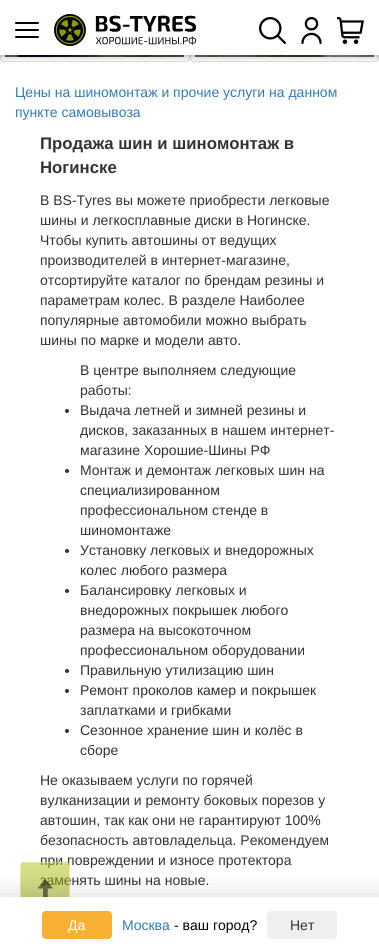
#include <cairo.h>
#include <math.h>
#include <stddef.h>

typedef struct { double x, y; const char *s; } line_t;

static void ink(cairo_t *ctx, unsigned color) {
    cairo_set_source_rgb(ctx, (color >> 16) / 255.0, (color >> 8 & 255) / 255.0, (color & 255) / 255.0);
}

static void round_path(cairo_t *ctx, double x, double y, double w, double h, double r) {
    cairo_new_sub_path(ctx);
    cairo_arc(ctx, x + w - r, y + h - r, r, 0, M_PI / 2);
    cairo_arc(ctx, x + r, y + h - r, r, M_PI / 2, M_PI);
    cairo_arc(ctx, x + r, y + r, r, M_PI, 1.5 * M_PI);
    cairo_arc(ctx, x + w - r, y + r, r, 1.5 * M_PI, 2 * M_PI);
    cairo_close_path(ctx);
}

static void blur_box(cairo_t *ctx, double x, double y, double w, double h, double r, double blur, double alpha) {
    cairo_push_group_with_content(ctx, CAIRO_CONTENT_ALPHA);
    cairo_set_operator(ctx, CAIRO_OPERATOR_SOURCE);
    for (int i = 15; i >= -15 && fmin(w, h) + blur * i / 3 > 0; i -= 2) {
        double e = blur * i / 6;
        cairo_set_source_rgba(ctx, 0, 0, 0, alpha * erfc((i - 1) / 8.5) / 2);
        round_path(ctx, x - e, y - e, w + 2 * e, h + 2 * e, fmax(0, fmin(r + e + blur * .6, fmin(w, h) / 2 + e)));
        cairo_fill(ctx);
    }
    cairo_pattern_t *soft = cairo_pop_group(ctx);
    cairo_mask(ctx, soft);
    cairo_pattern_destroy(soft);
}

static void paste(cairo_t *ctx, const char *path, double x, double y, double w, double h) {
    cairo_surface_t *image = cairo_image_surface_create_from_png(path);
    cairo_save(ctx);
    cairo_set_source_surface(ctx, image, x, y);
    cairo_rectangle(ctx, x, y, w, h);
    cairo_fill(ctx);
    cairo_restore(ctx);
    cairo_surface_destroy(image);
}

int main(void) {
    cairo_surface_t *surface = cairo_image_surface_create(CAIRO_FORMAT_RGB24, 379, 952);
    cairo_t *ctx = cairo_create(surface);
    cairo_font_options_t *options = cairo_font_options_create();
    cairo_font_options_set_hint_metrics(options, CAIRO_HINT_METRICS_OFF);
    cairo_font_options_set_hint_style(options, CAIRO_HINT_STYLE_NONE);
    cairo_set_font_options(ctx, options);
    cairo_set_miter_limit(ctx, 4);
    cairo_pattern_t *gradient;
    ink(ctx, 0xFFFFFF);
    cairo_paint(ctx);
    round_path(ctx, 0.5, -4.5, 189, 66, 3.5);
    ink(ctx, 0xDDDDDD);
    cairo_set_line_width(ctx, 1);
    cairo_stroke(ctx);
    paste(ctx, "media/1.png", 5, 55, 179, 2);
    round_path(ctx, 190.5, -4.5, 188, 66, 3.5);
    cairo_stroke(ctx);
    paste(ctx, "media/2.png", 195, 55, 179, 2);
    cairo_select_font_face(ctx, "Liberation Sans", CAIRO_FONT_SLANT_NORMAL, CAIRO_FONT_WEIGHT_NORMAL);
    cairo_set_font_size(ctx, 14);
    ink(ctx, 0x337AB7);
    cairo_move_to(ctx, 15, 97);
    cairo_show_text(ctx, "Цены на шиномонтаж и прочие услуги на данном");
    cairo_move_to(ctx, 15, 117);
    cairo_show_text(ctx, "пункте самовывоза");
    cairo_select_font_face(ctx, "Liberation Sans", CAIRO_FONT_SLANT_NORMAL, CAIRO_FONT_WEIGHT_BOLD);
    cairo_set_font_size(ctx, 16.75);
    ink(ctx, 0x333333);
    cairo_move_to(ctx, 40, 149);
    cairo_show_text(ctx, "Продажа шин и шиномонтаж в");
    cairo_move_to(ctx, 40, 173);
    cairo_show_text(ctx, "Ногинске");
    cairo_select_font_face(ctx, "Liberation Sans", CAIRO_FONT_SLANT_NORMAL, CAIRO_FONT_WEIGHT_NORMAL);
    cairo_set_font_size(ctx, 14);
    {
        static const line_t items[] = {
            {40, 205, "В BS-Tyres вы можете приобрести легковые"},
            {40, 225, "шины и легкосплавные диски в Ногинске."},
            {40, 245, "Чтобы купить автошины от ведущих"},
            {40, 265, "производителей в интернет-магазине,"},
            {40, 285, "отсортируйте каталог по брендам резины и"},
            {40, 305, "параметрам колес. В разделе Наиболее"},
            {40, 325, "популярные автомобили можно выбрать"},
            {40, 345, "шины по марке и модели авто."},
            {80, 375, "В центре выполняем следующие"},
            {80, 395, "работы:"},
        };
        for (size_t i = 0; i < sizeof items / sizeof *items; i++) {
            cairo_move_to(ctx, items[i].x, items[i].y);
            cairo_show_text(ctx, items[i].s);
        }
    }
    cairo_new_path(ctx);
    cairo_arc(ctx, 67, 411, 2, 0, 2 * M_PI);
    cairo_fill(ctx);
    {
        static const line_t items[] = {
            {80, 415, "Выдача летней и зимней резины и"},
            {80, 435, "дисков, заказанных в нашем интернет-"},
            {80, 455, "магазине Хорошие-Шины РФ"},
        };
        for (size_t i = 0; i < sizeof items / sizeof *items; i++) {
            cairo_move_to(ctx, items[i].x, items[i].y);
            cairo_show_text(ctx, items[i].s);
        }
    }
    cairo_new_path(ctx);
    cairo_arc(ctx, 67, 471, 2, 0, 2 * M_PI);
    cairo_fill(ctx);
    {
        static const line_t items[] = {
            {80, 475, "Монтаж и демонтаж легковых шин на"},
            {80, 495, "специализированном"},
            {80, 515, "профессиональном стенде в"},
            {80, 535, "шиномонтаже"},
        };
        for (size_t i = 0; i < sizeof items / sizeof *items; i++) {
            cairo_move_to(ctx, items[i].x, items[i].y);
            cairo_show_text(ctx, items[i].s);
        }
    }
    cairo_new_path(ctx);
    cairo_arc(ctx, 67, 551, 2, 0, 2 * M_PI);
    cairo_fill(ctx);
    cairo_move_to(ctx, 80, 555);
    cairo_show_text(ctx, "Установку легковых и внедорожных");
    cairo_move_to(ctx, 80, 575);
    cairo_show_text(ctx, "колес любого размера");
    cairo_new_path(ctx);
    cairo_arc(ctx, 67, 591, 2, 0, 2 * M_PI);
    cairo_fill(ctx);
    {
        static const line_t items[] = {
            {80, 595, "Балансировку легковых и"},
            {80, 615, "внедорожных покрышек любого"},
            {80, 635, "размера на высокоточном"},
            {80, 655, "профессиональном оборудовании"},
        };
        for (size_t i = 0; i < sizeof items / sizeof *items; i++) {
            cairo_move_to(ctx, items[i].x, items[i].y);
            cairo_show_text(ctx, items[i].s);
        }
    }
    cairo_new_path(ctx);
    cairo_arc(ctx, 67, 671, 2, 0, 2 * M_PI);
    cairo_fill(ctx);
    cairo_move_to(ctx, 80, 675);
    cairo_show_text(ctx, "Правильную утилизацию шин");
    cairo_new_path(ctx);
    cairo_arc(ctx, 67, 691, 2, 0, 2 * M_PI);
    cairo_fill(ctx);
    cairo_move_to(ctx, 80, 695);
    cairo_show_text(ctx, "Ремонт проколов камер и покрышек");
    cairo_move_to(ctx, 80, 715);
    cairo_show_text(ctx, "заплатками и грибками");
    cairo_new_path(ctx);
    cairo_arc(ctx, 67, 731, 2, 0, 2 * M_PI);
    cairo_fill(ctx);
    {
        static const line_t items[] = {
            {80, 735, "Сезонное хранение шин и колёс в"},
            {80, 755, "сборе"},
            {40, 785, "Не оказываем услуги по горячей"},
            {40, 805, "вулканизации и ремонту боковых порезов у"},
            {40, 825, "автошин, так как они не гарантируют 100%"},
            {40, 845, "безопасность автовладельца. Рекомендуем"},
            {40, 865, "при повреждении и износе протектора"},
            {40, 885, "заменять шины на новые."},
        };
        for (size_t i = 0; i < sizeof items / sizeof *items; i++) {
            cairo_move_to(ctx, items[i].x, items[i].y);
            cairo_show_text(ctx, items[i].s);
        }
    }
    ink(ctx, 0x000000);
    blur_box(ctx, 0, 0, 379, 55, 0, 4, 0.46);
    ink(ctx, 0xFFFFFF);
    cairo_rectangle(ctx, 0, 0, 379, 55);
    cairo_fill(ctx);
    paste(ctx, "media/3.png", 15, 22, 24, 16);
    paste(ctx, "media/4.png", 54, 14, 142, 32);
    paste(ctx, "media/5.png", 259, 17, 27, 27);
    paste(ctx, "media/6.png", 301, 17, 21, 27);
    paste(ctx, "media/7.png", 337, 17, 27, 27);
    cairo_save(ctx);
    round_path(ctx, 20, 862, 50, 50, 4);
    cairo_clip(ctx);
    gradient = cairo_pattern_create_linear(45, 815, 45, 863);
    cairo_pattern_add_color_stop_rgba(gradient, 0, 0.702, 0.761, 0.055, 0.5);
    cairo_pattern_add_color_stop_rgba(gradient, 1, 0.549, 0.608, 0, 0.5);
    cairo_set_source(ctx, gradient);
    cairo_pattern_destroy(gradient);
    cairo_rectangle(ctx, 20, 862, 50, 1);
    cairo_fill(ctx);
    gradient = cairo_pattern_create_linear(45, 863, 45, 911);
    cairo_pattern_add_color_stop_rgba(gradient, 0, 0.702, 0.761, 0.055, 0.5);
    cairo_pattern_add_color_stop_rgba(gradient, 1, 0.549, 0.608, 0, 0.5);
    cairo_set_source(ctx, gradient);
    cairo_pattern_destroy(gradient);
    cairo_rectangle(ctx, 20, 863, 50, 34);
    cairo_fill(ctx);
    cairo_restore(ctx);
    round_path(ctx, 20.5, 862.5, 49, 49, 3.5);
    cairo_set_source_rgba(ctx, 0.949, 1, 0.792, 0.5);
    cairo_stroke(ctx);
    paste(ctx, "media/8.png", 38, 879, 15, 18);
    ink(ctx, 0x000000);
    blur_box(ctx, -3, 891, 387, 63, 0, 10, 0.1);
    ink(ctx, 0xFFFFFF);
    cairo_rectangle(ctx, 0, 897, 379, 55);
    cairo_fill(ctx);
    ink(ctx, 0xF8B135);
    round_path(ctx, 42, 911, 70, 28, 4);
    cairo_fill(ctx);
    ink(ctx, 0xFFFFFF);
    cairo_move_to(ctx, 68, 930);
    cairo_show_text(ctx, "Да");
    ink(ctx, 0x337AB7);
    cairo_move_to(ctx, 122, 930);
    cairo_show_text(ctx, "Москва");
    ink(ctx, 0x000000);
    cairo_move_to(ctx, 174, 930);
    cairo_show_text(ctx, "- ваш город?");
    ink(ctx, 0xEFEFEF);
    round_path(ctx, 267, 911, 70, 28, 4);
    cairo_fill(ctx);
    ink(ctx, 0x333333);
    cairo_move_to(ctx, 290, 930);
    cairo_show_text(ctx, "Нет");
    cairo_surface_write_to_png(surface, "image.png");
    cairo_font_options_destroy(options);
    cairo_destroy(ctx);
    cairo_surface_destroy(surface);
    return 0;
}
